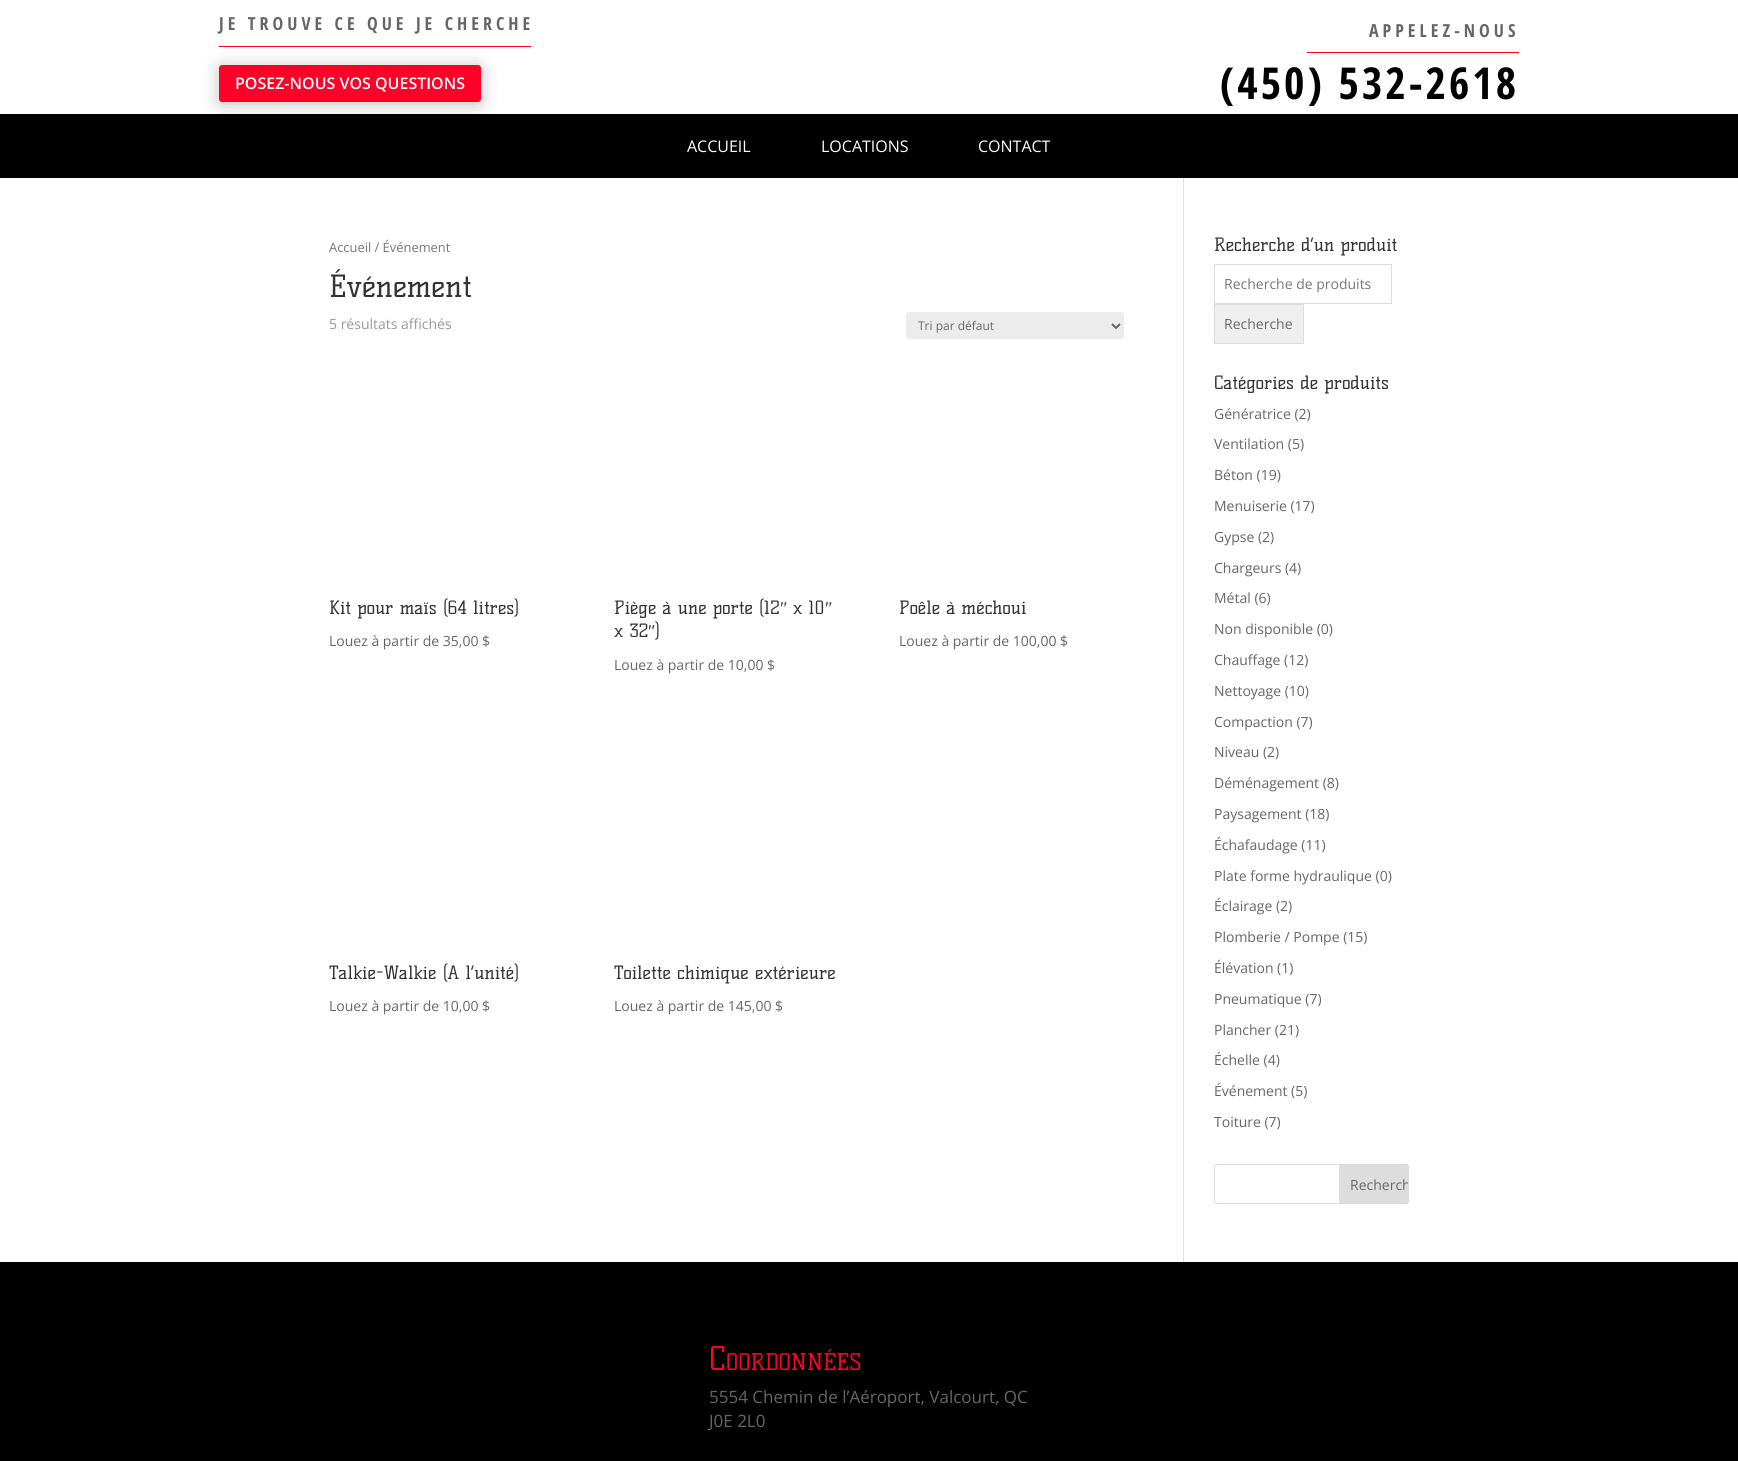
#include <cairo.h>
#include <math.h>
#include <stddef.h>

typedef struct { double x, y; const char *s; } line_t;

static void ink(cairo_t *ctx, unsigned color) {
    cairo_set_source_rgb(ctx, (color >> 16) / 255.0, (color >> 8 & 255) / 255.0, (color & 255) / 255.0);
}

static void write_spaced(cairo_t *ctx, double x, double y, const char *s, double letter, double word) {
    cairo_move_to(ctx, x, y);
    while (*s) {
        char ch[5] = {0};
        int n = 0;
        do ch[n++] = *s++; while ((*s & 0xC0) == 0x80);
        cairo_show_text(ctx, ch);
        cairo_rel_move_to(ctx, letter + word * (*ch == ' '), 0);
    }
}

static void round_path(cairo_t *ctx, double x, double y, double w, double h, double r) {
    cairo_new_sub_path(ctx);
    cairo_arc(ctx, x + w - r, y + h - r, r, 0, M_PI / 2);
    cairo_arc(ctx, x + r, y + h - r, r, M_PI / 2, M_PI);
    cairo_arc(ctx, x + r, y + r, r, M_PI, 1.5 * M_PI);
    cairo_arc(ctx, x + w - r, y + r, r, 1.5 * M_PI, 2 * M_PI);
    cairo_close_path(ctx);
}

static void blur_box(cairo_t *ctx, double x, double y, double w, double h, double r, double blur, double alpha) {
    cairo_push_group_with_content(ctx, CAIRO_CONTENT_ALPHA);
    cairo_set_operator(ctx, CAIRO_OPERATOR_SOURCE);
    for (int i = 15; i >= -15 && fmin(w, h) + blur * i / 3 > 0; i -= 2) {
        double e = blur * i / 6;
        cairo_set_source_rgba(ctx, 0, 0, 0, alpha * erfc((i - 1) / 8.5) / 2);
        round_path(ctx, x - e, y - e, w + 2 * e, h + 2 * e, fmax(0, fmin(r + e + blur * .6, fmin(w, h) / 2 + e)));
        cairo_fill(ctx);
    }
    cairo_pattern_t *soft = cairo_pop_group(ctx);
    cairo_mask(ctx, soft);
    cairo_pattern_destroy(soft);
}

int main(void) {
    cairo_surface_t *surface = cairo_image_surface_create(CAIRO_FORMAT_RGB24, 1738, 1461);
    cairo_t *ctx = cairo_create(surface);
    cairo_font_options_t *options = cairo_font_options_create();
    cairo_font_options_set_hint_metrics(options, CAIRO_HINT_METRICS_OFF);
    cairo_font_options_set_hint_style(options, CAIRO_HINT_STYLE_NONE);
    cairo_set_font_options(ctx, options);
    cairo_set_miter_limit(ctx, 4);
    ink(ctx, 0xFFFFFF);
    cairo_paint(ctx);
    cairo_select_font_face(ctx, "Open Sans Condensed", CAIRO_FONT_SLANT_NORMAL, CAIRO_FONT_WEIGHT_BOLD);
    cairo_set_font_size(ctx, 18);
    ink(ctx, 0x666666);
    write_spaced(ctx, 219, 30, "JE TROUVE CE QUE JE CHERCHE", 4, 0);
    ink(ctx, 0x000000);
    cairo_rectangle(ctx, 0, 114, 1738, 64);
    cairo_fill(ctx);
    ink(ctx, 0x000000);
    blur_box(ctx, 219, 67, 262, 37, 3, 9, 0.25);
    ink(ctx, 0xFF002A);
    cairo_rectangle(ctx, 219, 46, 312, 1);
    cairo_fill(ctx);
    ink(ctx, 0xFF0028);
    round_path(ctx, 219, 65, 262, 37, 3);
    cairo_fill(ctx);
    cairo_select_font_face(ctx, "Open Sans SemiBold", CAIRO_FONT_SLANT_NORMAL, CAIRO_FONT_WEIGHT_NORMAL);
    cairo_set_font_size(ctx, 16);
    ink(ctx, 0xFFFFFF);
    cairo_move_to(ctx, 235, 89);
    cairo_show_text(ctx, "POSEZ-NOUS VOS QUESTIONS");
    cairo_select_font_face(ctx, "Open Sans Condensed", CAIRO_FONT_SLANT_NORMAL, CAIRO_FONT_WEIGHT_BOLD);
    cairo_set_font_size(ctx, 18);
    ink(ctx, 0x666666);
    write_spaced(ctx, 1369, 37, "APPELEZ-NOUS", 4, 0);
    ink(ctx, 0xFF002A);
    cairo_rectangle(ctx, 1307, 52, 212, 1);
    cairo_fill(ctx);
    cairo_set_font_size(ctx, 44);
    ink(ctx, 0x000000);
    write_spaced(ctx, 1220, 99, "(450) 532-2618", 3, 0);
    cairo_select_font_face(ctx, "Open Sans", CAIRO_FONT_SLANT_NORMAL, CAIRO_FONT_WEIGHT_NORMAL);
    cairo_set_font_size(ctx, 16);
    ink(ctx, 0xFFFFFF);
    {
        static const line_t items[] = {
            {687, 152, "ACCUEIL"},
            {821, 152, "LOCATIONS"},
            {978, 152, "CONTACT"},
        };
        for (size_t i = 0; i < sizeof items / sizeof *items; i++) {
            cairo_move_to(ctx, items[i].x, items[i].y);
            cairo_show_text(ctx, items[i].s);
        }
    }
    ink(ctx, 0xE2E2E2);
    cairo_rectangle(ctx, 1183, 178, 1, 1084);
    cairo_fill(ctx);
    cairo_set_font_size(ctx, 12.9);
    ink(ctx, 0x767676);
    cairo_move_to(ctx, 329, 252);
    cairo_show_text(ctx, "Accueil / Événement");
    cairo_select_font_face(ctx, "Kelly Slab", CAIRO_FONT_SLANT_NORMAL, CAIRO_FONT_WEIGHT_NORMAL);
    cairo_set_font_size(ctx, 30);
    ink(ctx, 0x333333);
    cairo_move_to(ctx, 329, 297);
    cairo_show_text(ctx, "Événement");
    cairo_select_font_face(ctx, "Open Sans", CAIRO_FONT_SLANT_NORMAL, CAIRO_FONT_WEIGHT_NORMAL);
    cairo_set_font_size(ctx, 14);
    ink(ctx, 0x999999);
    cairo_move_to(ctx, 329, 329);
    cairo_show_text(ctx, "5 résultats affichés");
    ink(ctx, 0xECECEC);
    round_path(ctx, 906, 312, 218, 27, 3);
    cairo_fill(ctx);
    cairo_new_path(ctx);
    cairo_move_to(ctx, 1112, 324);
    cairo_line_to(ctx, 1116, 328);
    cairo_line_to(ctx, 1120, 324);
    ink(ctx, 0x666666);
    cairo_stroke(ctx);
    cairo_set_font_size(ctx, 12);
    cairo_move_to(ctx, 918, 330);
    cairo_show_text(ctx, "Tri par défaut");
    cairo_select_font_face(ctx, "Kelly Slab", CAIRO_FONT_SLANT_NORMAL, CAIRO_FONT_WEIGHT_NORMAL);
    cairo_set_font_size(ctx, 18);
    ink(ctx, 0x333333);
    cairo_move_to(ctx, 329, 614);
    cairo_show_text(ctx, "Kit pour maïs (64 litres)");
    cairo_select_font_face(ctx, "Open Sans", CAIRO_FONT_SLANT_NORMAL, CAIRO_FONT_WEIGHT_NORMAL);
    cairo_set_font_size(ctx, 14);
    ink(ctx, 0x666666);
    cairo_move_to(ctx, 329, 646);
    cairo_show_text(ctx, "Louez à partir de 35,00 $");
    cairo_select_font_face(ctx, "Kelly Slab", CAIRO_FONT_SLANT_NORMAL, CAIRO_FONT_WEIGHT_NORMAL);
    cairo_set_font_size(ctx, 18);
    ink(ctx, 0x333333);
    cairo_move_to(ctx, 614, 614);
    cairo_show_text(ctx, "Piège à une porte (12");
    cairo_select_font_face(ctx, "Liberation Serif", CAIRO_FONT_SLANT_NORMAL, CAIRO_FONT_WEIGHT_NORMAL);
    cairo_move_to(ctx, 780, 614);
    cairo_show_text(ctx, "″");
    cairo_select_font_face(ctx, "Kelly Slab", CAIRO_FONT_SLANT_NORMAL, CAIRO_FONT_WEIGHT_NORMAL);
    cairo_move_to(ctx, 793, 614);
    cairo_show_text(ctx, "x 10");
    cairo_select_font_face(ctx, "Liberation Serif", CAIRO_FONT_SLANT_NORMAL, CAIRO_FONT_WEIGHT_NORMAL);
    cairo_move_to(ctx, 825, 614);
    cairo_show_text(ctx, "″");
    cairo_select_font_face(ctx, "Kelly Slab", CAIRO_FONT_SLANT_NORMAL, CAIRO_FONT_WEIGHT_NORMAL);
    cairo_move_to(ctx, 614, 637);
    cairo_show_text(ctx, "x 32");
    cairo_select_font_face(ctx, "Liberation Serif", CAIRO_FONT_SLANT_NORMAL, CAIRO_FONT_WEIGHT_NORMAL);
    cairo_move_to(ctx, 648, 637);
    cairo_show_text(ctx, "″");
    cairo_select_font_face(ctx, "Kelly Slab", CAIRO_FONT_SLANT_NORMAL, CAIRO_FONT_WEIGHT_NORMAL);
    cairo_move_to(ctx, 655, 637);
    cairo_show_text(ctx, ")");
    cairo_select_font_face(ctx, "Open Sans", CAIRO_FONT_SLANT_NORMAL, CAIRO_FONT_WEIGHT_NORMAL);
    cairo_set_font_size(ctx, 14);
    ink(ctx, 0x666666);
    cairo_move_to(ctx, 614, 670);
    cairo_show_text(ctx, "Louez à partir de 10,00 $");
    cairo_select_font_face(ctx, "Kelly Slab", CAIRO_FONT_SLANT_NORMAL, CAIRO_FONT_WEIGHT_NORMAL);
    cairo_set_font_size(ctx, 18);
    ink(ctx, 0x333333);
    cairo_move_to(ctx, 899, 614);
    cairo_show_text(ctx, "Poêle à méchoui");
    cairo_select_font_face(ctx, "Open Sans", CAIRO_FONT_SLANT_NORMAL, CAIRO_FONT_WEIGHT_NORMAL);
    cairo_set_font_size(ctx, 14);
    ink(ctx, 0x666666);
    cairo_move_to(ctx, 899, 646);
    cairo_show_text(ctx, "Louez à partir de 100,00 $");
    cairo_select_font_face(ctx, "Kelly Slab", CAIRO_FONT_SLANT_NORMAL, CAIRO_FONT_WEIGHT_NORMAL);
    cairo_set_font_size(ctx, 18);
    ink(ctx, 0x333333);
    cairo_move_to(ctx, 329, 979);
    cairo_show_text(ctx, "Talkie-Walkie (A l’unité)");
    cairo_select_font_face(ctx, "Open Sans", CAIRO_FONT_SLANT_NORMAL, CAIRO_FONT_WEIGHT_NORMAL);
    cairo_set_font_size(ctx, 14);
    ink(ctx, 0x666666);
    cairo_move_to(ctx, 329, 1011);
    cairo_show_text(ctx, "Louez à partir de 10,00 $");
    cairo_select_font_face(ctx, "Kelly Slab", CAIRO_FONT_SLANT_NORMAL, CAIRO_FONT_WEIGHT_NORMAL);
    cairo_set_font_size(ctx, 18);
    ink(ctx, 0x333333);
    cairo_move_to(ctx, 614, 979);
    cairo_show_text(ctx, "Toilette chimique extérieure");
    cairo_select_font_face(ctx, "Open Sans", CAIRO_FONT_SLANT_NORMAL, CAIRO_FONT_WEIGHT_NORMAL);
    cairo_set_font_size(ctx, 14);
    ink(ctx, 0x666666);
    cairo_move_to(ctx, 614, 1011);
    cairo_show_text(ctx, "Louez à partir de 145,00 $");
    cairo_select_font_face(ctx, "Kelly Slab", CAIRO_FONT_SLANT_NORMAL, CAIRO_FONT_WEIGHT_NORMAL);
    cairo_set_font_size(ctx, 18);
    ink(ctx, 0x333333);
    cairo_move_to(ctx, 1214, 251);
    cairo_show_text(ctx, "Recherche d’un produit");
    cairo_rectangle(ctx, 1214.5, 264.5, 177, 39);
    ink(ctx, 0xDDDDDD);
    cairo_set_line_width(ctx, 1);
    cairo_stroke(ctx);
    cairo_select_font_face(ctx, "Open Sans", CAIRO_FONT_SLANT_NORMAL, CAIRO_FONT_WEIGHT_NORMAL);
    cairo_set_font_size(ctx, 14);
    ink(ctx, 0x767676);
    cairo_move_to(ctx, 1224, 289);
    cairo_show_text(ctx, "Recherche de produits");
    ink(ctx, 0xEFEFEF);
    cairo_rectangle(ctx, 1214.5, 304.5, 89, 39);
    cairo_fill_preserve(ctx);
    ink(ctx, 0xDDDDDD);
    cairo_stroke(ctx);
    ink(ctx, 0x666666);
    cairo_move_to(ctx, 1224, 329);
    cairo_show_text(ctx, "Recherche");
    cairo_select_font_face(ctx, "Kelly Slab", CAIRO_FONT_SLANT_NORMAL, CAIRO_FONT_WEIGHT_NORMAL);
    cairo_set_font_size(ctx, 18);
    ink(ctx, 0x333333);
    cairo_move_to(ctx, 1214, 389);
    cairo_show_text(ctx, "Catégories de produits");
    cairo_select_font_face(ctx, "Open Sans", CAIRO_FONT_SLANT_NORMAL, CAIRO_FONT_WEIGHT_NORMAL);
    cairo_set_font_size(ctx, 14);
    ink(ctx, 0x666666);
    {
        static const line_t items[] = {
            {1214, 419, "Génératrice (2)"},
            {1214, 449, "Ventilation (5)"},
            {1214, 480, "Béton (19)"},
            {1214, 511, "Menuiserie (17)"},
            {1214, 542, "Gypse (2)"},
            {1214, 573, "Chargeurs (4)"},
            {1214, 603, "Métal (6)"},
            {1214, 634, "Non disponible (0)"},
            {1214, 665, "Chauffage (12)"},
            {1214, 696, "Nettoyage (10)"},
            {1214, 727, "Compaction (7)"},
            {1214, 757, "Niveau (2)"},
            {1214, 788, "Déménagement (8)"},
            {1214, 819, "Paysagement (18)"},
            {1214, 850, "Échafaudage (11)"},
            {1214, 881, "Plate forme hydraulique (0)"},
            {1214, 911, "Éclairage (2)"},
            {1214, 942, "Plomberie / Pompe (15)"},
            {1214, 973, "Élévation (1)"},
            {1214, 1004, "Pneumatique (7)"},
            {1214, 1035, "Plancher (21)"},
            {1214, 1065, "Échelle (4)"},
            {1214, 1096, "Événement (5)"},
            {1214, 1127, "Toiture (7)"},
        };
        for (size_t i = 0; i < sizeof items / sizeof *items; i++) {
            cairo_move_to(ctx, items[i].x, items[i].y);
            cairo_show_text(ctx, items[i].s);
        }
    }
    round_path(ctx, 1214.5, 1164.5, 194, 39, 2.5);
    ink(ctx, 0xDDDDDD);
    cairo_stroke(ctx);
    cairo_new_path(ctx);
    cairo_move_to(ctx, 1339.5, 1164.5);
    cairo_line_to(ctx, 1406, 1164.5);
    cairo_curve_to(ctx, 1407.5, 1164.5, 1408.5, 1165.5, 1408.5, 1167);
    cairo_line_to(ctx, 1408.5, 1201);
    cairo_curve_to(ctx, 1408.5, 1202.5, 1407.5, 1203.5, 1406, 1203.5);
    cairo_line_to(ctx, 1339.5, 1203.5);
    cairo_close_path(ctx);
    cairo_fill_preserve(ctx);
    cairo_stroke(ctx);
    cairo_save(ctx);
    cairo_new_path(ctx);
    cairo_move_to(ctx, 1340, 1165);
    cairo_line_to(ctx, 1406, 1165);
    cairo_curve_to(ctx, 1407, 1165, 1408, 1166, 1408, 1167);
    cairo_line_to(ctx, 1408, 1201);
    cairo_curve_to(ctx, 1408, 1202, 1407, 1203, 1406, 1203);
    cairo_line_to(ctx, 1340, 1203);
    cairo_close_path(ctx);
    cairo_clip(ctx);
    ink(ctx, 0x666666);
    cairo_move_to(ctx, 1350, 1190);
    cairo_show_text(ctx, "Recherch");
    cairo_restore(ctx);
    ink(ctx, 0x000000);
    cairo_rectangle(ctx, 0, 1262, 1738, 199);
    cairo_fill(ctx);
    cairo_select_font_face(ctx, "Kelly Slab", CAIRO_FONT_SLANT_NORMAL, CAIRO_FONT_WEIGHT_NORMAL);
    cairo_set_font_size(ctx, 32);
    ink(ctx, 0xFF0028);
    cairo_move_to(ctx, 709, 1370);
    cairo_show_text(ctx, "C");
    cairo_set_font_size(ctx, 22.5);
    cairo_move_to(ctx, 726, 1370);
    cairo_show_text(ctx, "OORDONNÉES");
    cairo_select_font_face(ctx, "Open Sans", CAIRO_FONT_SLANT_NORMAL, CAIRO_FONT_WEIGHT_NORMAL);
    cairo_set_font_size(ctx, 17);
    ink(ctx, 0x666666);
    cairo_move_to(ctx, 709, 1403);
    cairo_show_text(ctx, "5554 Chemin de l’Aéroport, Valcourt, QC");
    cairo_move_to(ctx, 709, 1427);
    cairo_show_text(ctx, "J0E 2L0");
    cairo_surface_write_to_png(surface, "image.png");
    cairo_font_options_destroy(options);
    cairo_destroy(ctx);
    cairo_surface_destroy(surface);
    return 0;
}
